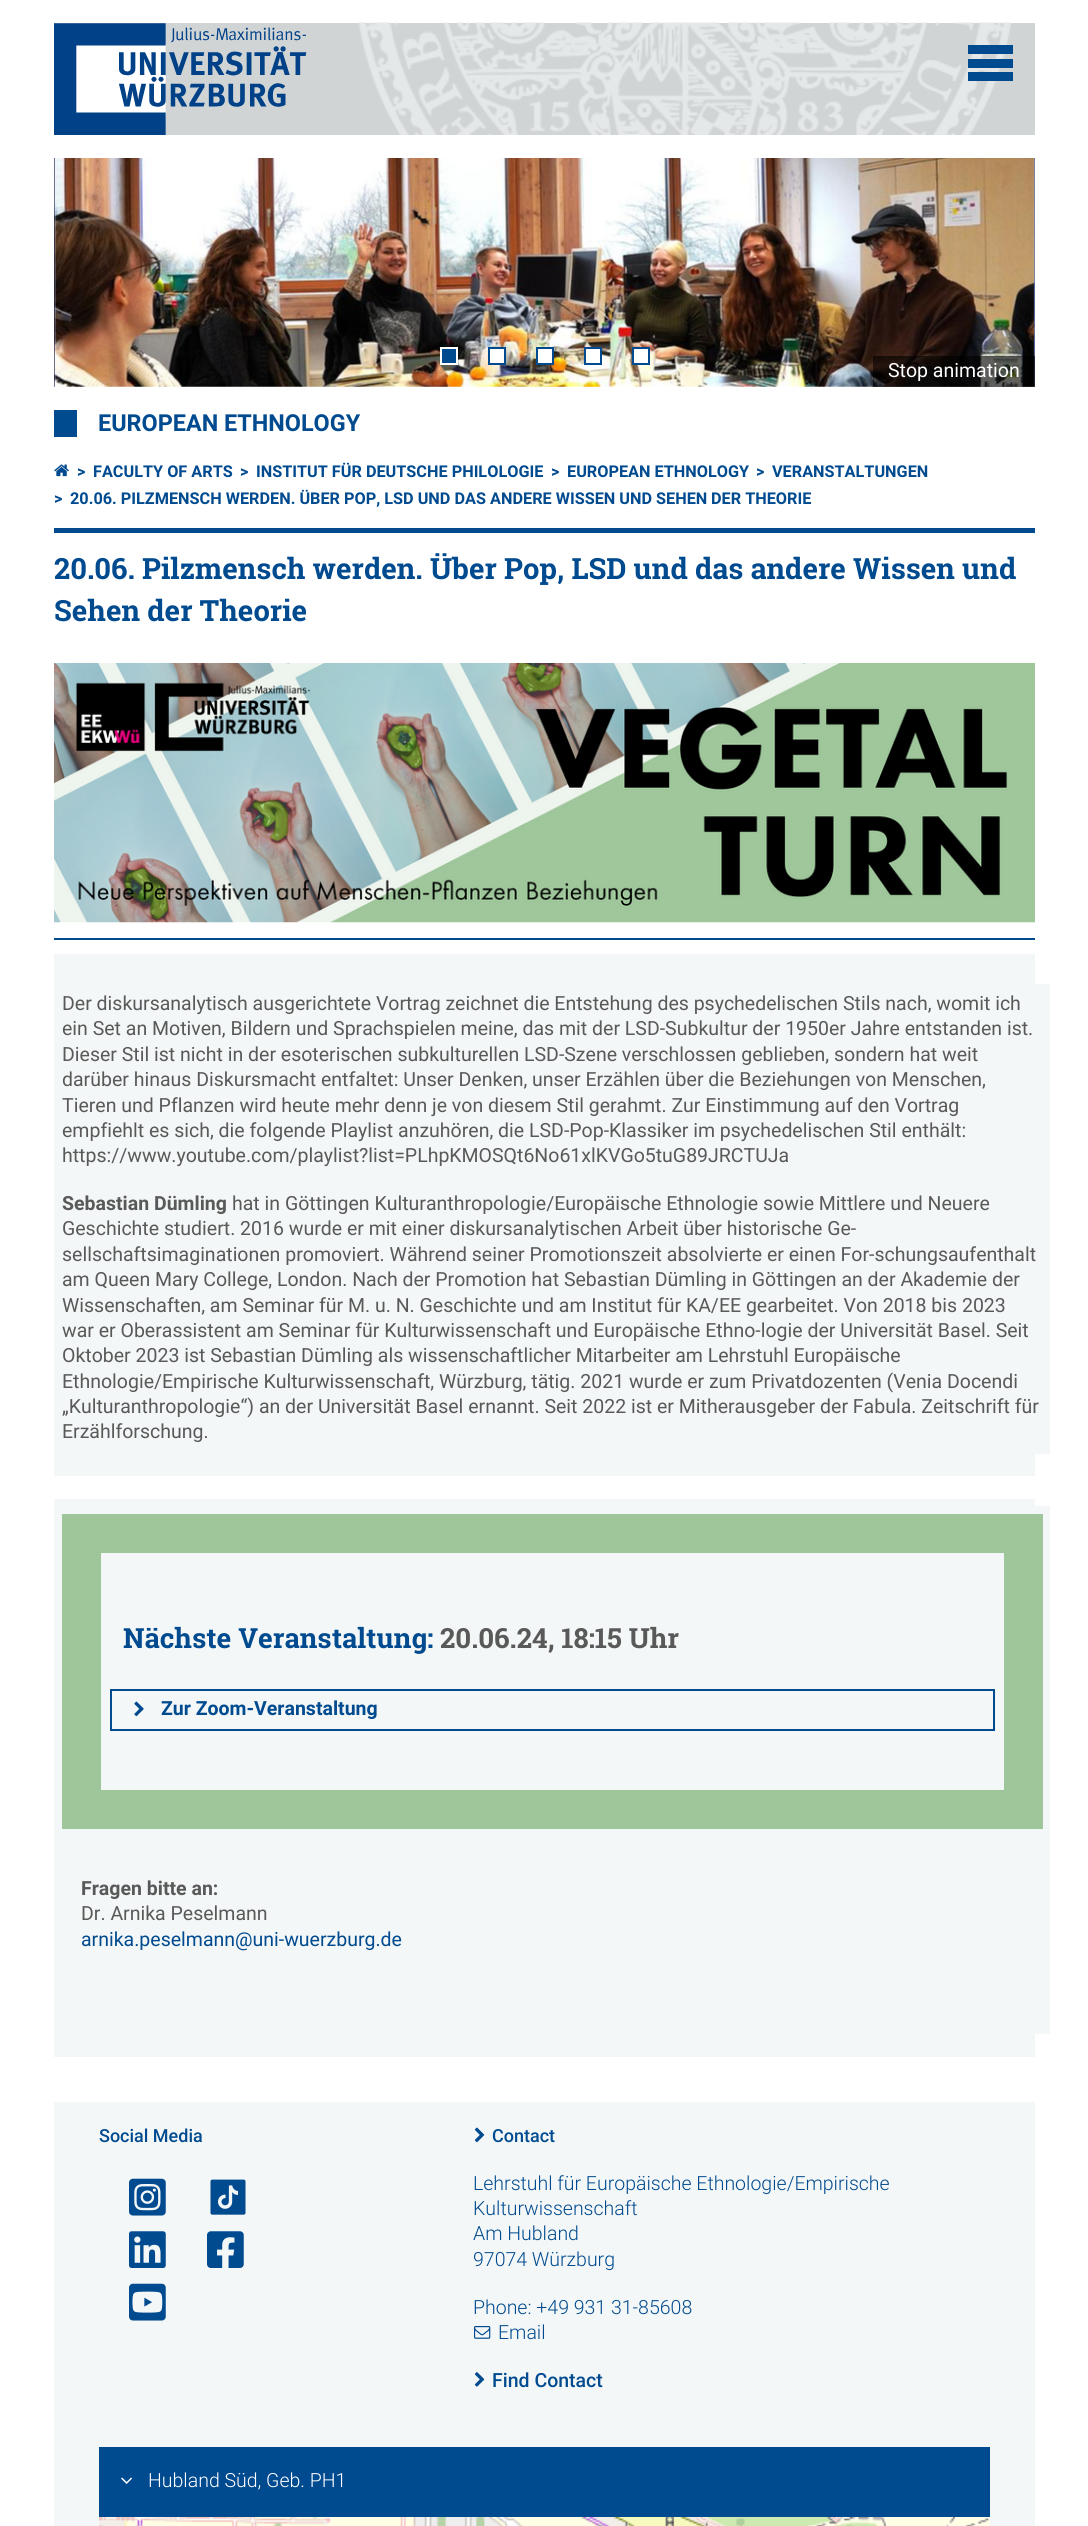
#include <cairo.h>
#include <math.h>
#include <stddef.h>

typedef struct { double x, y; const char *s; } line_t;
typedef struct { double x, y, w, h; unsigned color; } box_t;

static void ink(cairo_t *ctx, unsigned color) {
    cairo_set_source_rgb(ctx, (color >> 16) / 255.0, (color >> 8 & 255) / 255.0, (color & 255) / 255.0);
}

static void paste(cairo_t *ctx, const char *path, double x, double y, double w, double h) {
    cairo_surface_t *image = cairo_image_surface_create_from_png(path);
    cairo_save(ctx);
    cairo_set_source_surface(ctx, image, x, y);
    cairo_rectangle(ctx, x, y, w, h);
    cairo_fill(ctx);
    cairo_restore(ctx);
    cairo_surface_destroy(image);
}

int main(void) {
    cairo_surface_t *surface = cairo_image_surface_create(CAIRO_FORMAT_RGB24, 1088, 2526);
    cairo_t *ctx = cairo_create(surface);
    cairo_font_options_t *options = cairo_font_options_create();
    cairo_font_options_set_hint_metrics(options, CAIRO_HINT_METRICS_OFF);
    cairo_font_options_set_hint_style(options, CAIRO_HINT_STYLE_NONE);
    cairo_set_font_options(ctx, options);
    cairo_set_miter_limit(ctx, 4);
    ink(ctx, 0xFFFFFF);
    cairo_paint(ctx);
    ink(ctx, 0xD1D4D4);
    cairo_rectangle(ctx, 54, 23, 981, 112);
    cairo_fill(ctx);
    paste(ctx, "media/1.png", 358, 22, 653, 113);
    paste(ctx, "media/2.png", 54, 23, 253, 112);
    {
        static const box_t items[] = {
            {968, 45, 45, 9, 0x004A8F},
            {968, 59, 45, 9, 0x004A8F},
            {968, 72, 45, 9, 0x004A8F},
        };
        for (size_t i = 0; i < sizeof items / sizeof *items; i++) {
            ink(ctx, items[i].color);
            cairo_rectangle(ctx, items[i].x, items[i].y, items[i].w, items[i].h);
            cairo_fill(ctx);
        }
    }
    paste(ctx, "media/3.png", 54, 158, 1, 229);
    paste(ctx, "media/4.png", 54, 158, 981, 229);
    paste(ctx, "media/5.png", 1034, 158, 1, 229);
    cairo_rectangle(ctx, 441, 348, 16, 16);
    cairo_fill_preserve(ctx);
    ink(ctx, 0xFFFFFF);
    cairo_stroke(ctx);
    cairo_rectangle(ctx, 489, 348, 16, 16);
    cairo_fill_preserve(ctx);
    ink(ctx, 0x004A8F);
    cairo_stroke(ctx);
    ink(ctx, 0xFFFFFF);
    cairo_rectangle(ctx, 537, 348, 16, 16);
    cairo_fill_preserve(ctx);
    ink(ctx, 0x004A8F);
    cairo_stroke(ctx);
    ink(ctx, 0xFFFFFF);
    cairo_rectangle(ctx, 585, 348, 16, 16);
    cairo_fill_preserve(ctx);
    ink(ctx, 0x004A8F);
    cairo_stroke(ctx);
    ink(ctx, 0xFFFFFF);
    cairo_rectangle(ctx, 633, 348, 16, 16);
    cairo_fill_preserve(ctx);
    ink(ctx, 0x004A8F);
    cairo_stroke(ctx);
    cairo_set_source_rgba(ctx, 0, 0, 0, 0.6);
    cairo_rectangle(ctx, 873, 356, 162, 31);
    cairo_fill(ctx);
    cairo_select_font_face(ctx, "Roboto", CAIRO_FONT_SLANT_NORMAL, CAIRO_FONT_WEIGHT_NORMAL);
    cairo_set_font_size(ctx, 19.5);
    ink(ctx, 0xFFFFFF);
    cairo_move_to(ctx, 888, 377);
    cairo_show_text(ctx, "Stop animation");
    ink(ctx, 0x004A8F);
    cairo_rectangle(ctx, 54, 410, 23, 27);
    cairo_fill(ctx);
    cairo_select_font_face(ctx, "Roboto", CAIRO_FONT_SLANT_NORMAL, CAIRO_FONT_WEIGHT_BOLD);
    cairo_set_font_size(ctx, 23.4);
    cairo_move_to(ctx, 98, 431);
    cairo_show_text(ctx, "EUROPEAN ETHNOLOGY");
    cairo_rectangle(ctx, 54, 528, 981, 5);
    cairo_fill(ctx);
    paste(ctx, "media/6.png", 54, 464, 15, 13);
    cairo_set_font_size(ctx, 16.25);
    {
        static const line_t items[] = {
            {77, 477, ">"},
            {93, 477, "FACULTY OF ARTS"},
            {240, 477, ">"},
            {256, 477, "INSTITUT FÜR DEUTSCHE PHILOLOGIE"},
            {551, 477, ">"},
            {567, 477, "EUROPEAN ETHNOLOGY"},
            {756, 477, ">"},
            {772, 477, "VERANSTALTUNGEN"},
            {54, 504, ">"},
            {70, 504, "20.06. PILZMENSCH WERDEN. ÜBER POP, LSD UND DAS ANDERE WISSEN UND SEHEN"},
            {711, 504, "DER THEORIE"},
        };
        for (size_t i = 0; i < sizeof items / sizeof *items; i++) {
            cairo_move_to(ctx, items[i].x, items[i].y);
            cairo_show_text(ctx, items[i].s);
        }
    }
    cairo_select_font_face(ctx, "Roboto Slab", CAIRO_FONT_SLANT_NORMAL, CAIRO_FONT_WEIGHT_BOLD);
    cairo_set_font_size(ctx, 29.25);
    cairo_move_to(ctx, 54, 579);
    cairo_show_text(ctx, "20.06. Pilzmensch werden. Über Pop, LSD und das andere Wissen und");
    cairo_move_to(ctx, 54, 621);
    cairo_show_text(ctx, "Sehen der Theorie");
    paste(ctx, "media/7.png", 54, 663, 981, 260);
    {
        static const box_t items[] = {
            {54, 938, 981, 2, 0x004A8F},
            {54, 954, 981, 522, 0xF4F7F7},
            {1035, 984, 15, 470, 0xF4F7F7},
        };
        for (size_t i = 0; i < sizeof items / sizeof *items; i++) {
            ink(ctx, items[i].color);
            cairo_rectangle(ctx, items[i].x, items[i].y, items[i].w, items[i].h);
            cairo_fill(ctx);
        }
    }
    cairo_select_font_face(ctx, "Roboto", CAIRO_FONT_SLANT_NORMAL, CAIRO_FONT_WEIGHT_NORMAL);
    cairo_set_font_size(ctx, 19.5);
    ink(ctx, 0x595959);
    {
        static const line_t items[] = {
            {62, 1010, "Der diskursanalytisch ausgerichtete Vortrag zeichnet die Entstehung des psychedelischen Stils nach, womit ich"},
            {62, 1035, "ein Set an Motiven, Bildern und Sprachspielen meine, das mit der LSD-Subkultur der 1950er Jahre entstanden ist."},
            {62, 1061, "Dieser Stil ist nicht in der esoterischen subkulturellen LSD-Szene verschlossen geblieben, sondern hat weit"},
            {62, 1086, "darüber hinaus Diskursmacht entfaltet: Unser Denken, unser Erzählen über die Beziehungen von Menschen,"},
            {62, 1112, "Tieren und Pflanzen wird heute mehr denn je von diesem Stil gerahmt. Zur Einstimmung auf den Vortrag"},
            {62, 1137, "empfiehlt es sich, die folgende Playlist anzuhören, die LSD-Pop-Klassiker im psychedelischen Stil enthält:"},
            {62, 1162, "https://www.youtube.com/playlist?list=PLhpKMOSQt6No61xlKVGo5tuG89JRCTUJa"},
        };
        for (size_t i = 0; i < sizeof items / sizeof *items; i++) {
            cairo_move_to(ctx, items[i].x, items[i].y);
            cairo_show_text(ctx, items[i].s);
        }
    }
    cairo_select_font_face(ctx, "Roboto", CAIRO_FONT_SLANT_NORMAL, CAIRO_FONT_WEIGHT_BOLD);
    cairo_move_to(ctx, 62, 1210);
    cairo_show_text(ctx, "Sebastian Dümling");
    cairo_select_font_face(ctx, "Roboto", CAIRO_FONT_SLANT_NORMAL, CAIRO_FONT_WEIGHT_NORMAL);
    {
        static const line_t items[] = {
            {232, 1210, "hat in Göttingen Kulturanthropologie/Europäische Ethnologie sowie Mittlere und Neuere"},
            {62, 1235, "Geschichte studiert. 2016 wurde er mit einer diskursanalytischen Arbeit über historische Ge-"},
            {62, 1261, "sellschaftsimaginationen promoviert. Während seiner Promotionszeit absolvierte er einen For-schungsaufenthalt"},
            {62, 1286, "am Queen Mary College, London. Nach der Promotion hat Sebastian Dümling in Göttingen an der Akademie der"},
            {62, 1312, "Wissenschaften, am Seminar für M. u. N. Geschichte und am Institut für KA/EE gearbeitet. Von 2018 bis 2023"},
            {62, 1337, "war er Oberassistent am Seminar für Kulturwissenschaft und Europäische Ethno-logie der Universität Basel. Seit"},
            {62, 1362, "Oktober 2023 ist Sebastian Dümling als wissenschaftlicher Mitarbeiter am Lehrstuhl Europäische"},
            {62, 1388, "Ethnologie/Empirische Kulturwissenschaft, Würzburg, tätig. 2021 wurde er zum Privatdozenten (Venia Docendi"},
            {62, 1413, "„Kulturanthropologie“) an der Universität Basel ernannt. Seit 2022 ist er Mitherausgeber der Fabula. Zeitschrift für"},
            {62, 1438, "Erzählforschung."},
        };
        for (size_t i = 0; i < sizeof items / sizeof *items; i++) {
            cairo_move_to(ctx, items[i].x, items[i].y);
            cairo_show_text(ctx, items[i].s);
        }
    }
    ink(ctx, 0xF4F7F7);
    cairo_rectangle(ctx, 54, 1499, 981, 558);
    cairo_fill(ctx);
    cairo_rectangle(ctx, 1035, 1506, 15, 528);
    cairo_fill(ctx);
    cairo_rectangle(ctx, 81.5, 1533.5, 942, 276);
    ink(ctx, 0x9FC69B);
    cairo_set_line_width(ctx, 39);
    cairo_stroke(ctx);
    cairo_select_font_face(ctx, "Roboto Slab", CAIRO_FONT_SLANT_NORMAL, CAIRO_FONT_WEIGHT_BOLD);
    cairo_set_font_size(ctx, 27.75);
    ink(ctx, 0x004A8F);
    cairo_move_to(ctx, 123, 1648);
    cairo_show_text(ctx, "Nächste Veranstaltung:");
    ink(ctx, 0x595959);
    cairo_move_to(ctx, 440, 1648);
    cairo_show_text(ctx, "20.06.24, 18:15 Uhr");
    cairo_rectangle(ctx, 111, 1690, 883, 40);
    ink(ctx, 0x004A8F);
    cairo_set_line_width(ctx, 2);
    cairo_stroke(ctx);
    paste(ctx, "media/8.png", 134, 1701, 10, 16);
    cairo_select_font_face(ctx, "Roboto", CAIRO_FONT_SLANT_NORMAL, CAIRO_FONT_WEIGHT_BOLD);
    cairo_set_font_size(ctx, 19.5);
    cairo_move_to(ctx, 161, 1715);
    cairo_show_text(ctx, "Zur Zoom-Veranstaltung");
    ink(ctx, 0x595959);
    cairo_move_to(ctx, 81, 1895);
    cairo_show_text(ctx, "Fragen bitte an:");
    cairo_select_font_face(ctx, "Roboto", CAIRO_FONT_SLANT_NORMAL, CAIRO_FONT_WEIGHT_NORMAL);
    cairo_move_to(ctx, 81, 1920);
    cairo_show_text(ctx, "Dr. Arnika Peselmann");
    ink(ctx, 0x004A8F);
    cairo_move_to(ctx, 81, 1946);
    cairo_show_text(ctx, "arnika.peselmann@uni-wuerzburg.de");
    ink(ctx, 0xF4F7F7);
    cairo_rectangle(ctx, 54, 2102, 981, 424);
    cairo_fill(ctx);
    cairo_select_font_face(ctx, "Roboto Medium", CAIRO_FONT_SLANT_NORMAL, CAIRO_FONT_WEIGHT_NORMAL);
    cairo_set_font_size(ctx, 18);
    ink(ctx, 0x004A8F);
    cairo_move_to(ctx, 99, 2142);
    cairo_show_text(ctx, "Social Media");
    paste(ctx, "media/9.png", 129, 2178, 37, 38);
    paste(ctx, "media/10.png", 210, 2179, 36, 36);
    paste(ctx, "media/11.png", 129, 2231, 37, 37);
    paste(ctx, "media/12.png", 207, 2231, 37, 37);
    paste(ctx, "media/13.png", 129, 2283, 37, 38);
    paste(ctx, "media/14.png", 474, 2127, 11, 16);
    cairo_move_to(ctx, 492, 2142);
    cairo_show_text(ctx, "Contact");
    cairo_select_font_face(ctx, "Roboto Light", CAIRO_FONT_SLANT_NORMAL, CAIRO_FONT_WEIGHT_NORMAL);
    cairo_set_font_size(ctx, 19.5);
    {
        static const line_t items[] = {
            {473, 2190, "Lehrstuhl für Europäische Ethnologie/Empirische"},
            {473, 2215, "Kulturwissenschaft"},
            {473, 2240, "Am Hubland"},
            {473, 2266, "97074 Würzburg"},
            {473, 2314, "Phone: +49 931 31-85608"},
        };
        for (size_t i = 0; i < sizeof items / sizeof *items; i++) {
            cairo_move_to(ctx, items[i].x, items[i].y);
            cairo_show_text(ctx, items[i].s);
        }
    }
    paste(ctx, "media/15.png", 474, 2326, 17, 13);
    cairo_move_to(ctx, 498, 2339);
    cairo_show_text(ctx, "Email");
    paste(ctx, "media/16.png", 474, 2372, 11, 15);
    cairo_select_font_face(ctx, "Roboto Medium", CAIRO_FONT_SLANT_NORMAL, CAIRO_FONT_WEIGHT_NORMAL);
    cairo_move_to(ctx, 492, 2387);
    cairo_show_text(ctx, "Find Contact");
    cairo_rectangle(ctx, 99, 2447, 891, 70);
    cairo_fill(ctx);
    paste(ctx, "media/17.png", 121, 2477, 11, 7);
    cairo_select_font_face(ctx, "Roboto Light", CAIRO_FONT_SLANT_NORMAL, CAIRO_FONT_WEIGHT_NORMAL);
    ink(ctx, 0xFFFFFF);
    cairo_move_to(ctx, 148, 2487);
    cairo_show_text(ctx, "Hubland Süd, Geb. PH1");
    paste(ctx, "media/18.png", 99, 2517, 891, 9);
    cairo_surface_write_to_png(surface, "image.png");
    cairo_font_options_destroy(options);
    cairo_destroy(ctx);
    cairo_surface_destroy(surface);
    return 0;
}
